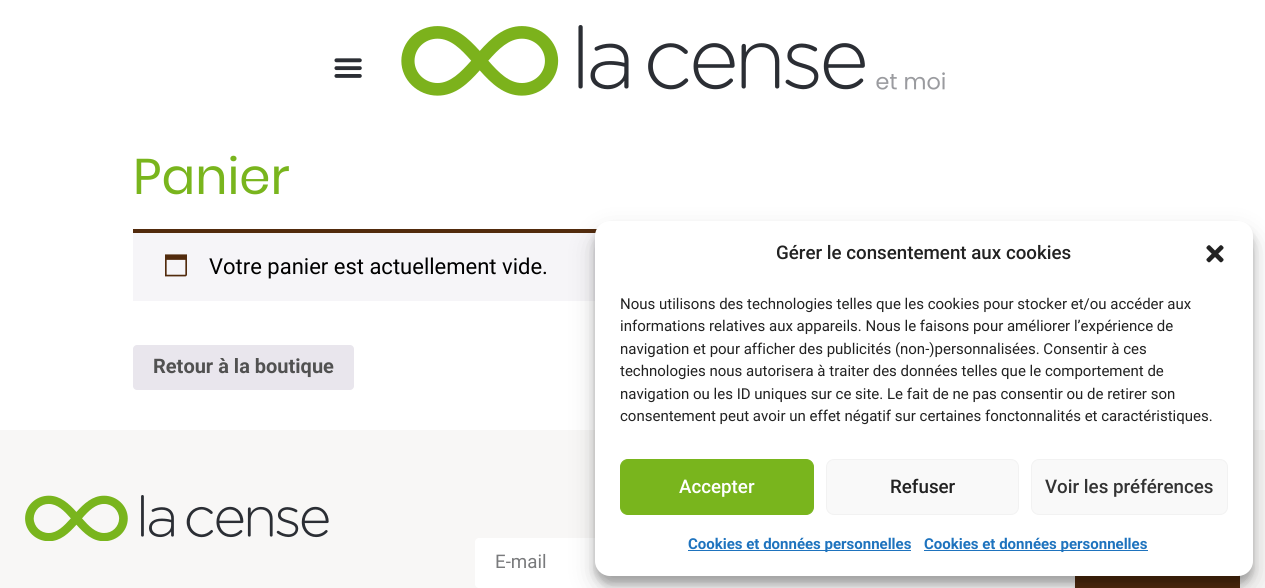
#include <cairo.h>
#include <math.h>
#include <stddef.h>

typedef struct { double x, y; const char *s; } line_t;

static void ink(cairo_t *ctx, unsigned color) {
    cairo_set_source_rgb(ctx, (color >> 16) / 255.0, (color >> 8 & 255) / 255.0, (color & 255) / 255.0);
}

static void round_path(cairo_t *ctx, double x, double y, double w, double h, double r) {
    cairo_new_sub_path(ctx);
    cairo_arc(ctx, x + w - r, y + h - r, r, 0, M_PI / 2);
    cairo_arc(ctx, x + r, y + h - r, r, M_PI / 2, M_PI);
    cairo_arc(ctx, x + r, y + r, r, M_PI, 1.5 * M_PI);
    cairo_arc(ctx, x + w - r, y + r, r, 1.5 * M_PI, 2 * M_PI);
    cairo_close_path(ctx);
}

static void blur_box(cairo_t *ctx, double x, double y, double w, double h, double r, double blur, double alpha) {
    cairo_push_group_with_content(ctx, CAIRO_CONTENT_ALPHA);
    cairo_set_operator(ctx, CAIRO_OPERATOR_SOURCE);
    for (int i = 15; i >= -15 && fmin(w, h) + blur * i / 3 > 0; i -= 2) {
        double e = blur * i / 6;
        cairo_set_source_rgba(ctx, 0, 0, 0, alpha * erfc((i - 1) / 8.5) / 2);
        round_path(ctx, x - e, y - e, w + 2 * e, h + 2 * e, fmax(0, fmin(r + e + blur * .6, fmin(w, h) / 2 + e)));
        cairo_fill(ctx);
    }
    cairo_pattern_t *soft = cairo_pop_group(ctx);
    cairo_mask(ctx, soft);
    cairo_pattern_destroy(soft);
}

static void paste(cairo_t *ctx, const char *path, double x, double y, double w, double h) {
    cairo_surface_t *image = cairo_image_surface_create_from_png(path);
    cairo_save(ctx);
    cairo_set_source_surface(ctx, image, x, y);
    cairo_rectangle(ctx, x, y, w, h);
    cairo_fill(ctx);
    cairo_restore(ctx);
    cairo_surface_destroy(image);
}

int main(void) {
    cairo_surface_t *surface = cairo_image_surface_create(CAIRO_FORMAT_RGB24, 1265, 588);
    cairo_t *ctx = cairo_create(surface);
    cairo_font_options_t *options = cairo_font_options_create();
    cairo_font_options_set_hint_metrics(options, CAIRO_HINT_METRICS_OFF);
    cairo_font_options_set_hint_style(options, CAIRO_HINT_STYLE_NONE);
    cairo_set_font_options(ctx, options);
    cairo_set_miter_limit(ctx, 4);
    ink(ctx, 0xFFFFFF);
    cairo_paint(ctx);
    paste(ctx, "media/1.png", 334, 58, 28, 20);
    paste(ctx, "media/2.png", 401, 25, 544, 71);
    cairo_select_font_face(ctx, "Poppins", CAIRO_FONT_SLANT_NORMAL, CAIRO_FONT_WEIGHT_NORMAL);
    cairo_set_font_size(ctx, 50);
    ink(ctx, 0x79B51D);
    cairo_move_to(ctx, 133, 194);
    cairo_show_text(ctx, "Panier");
    ink(ctx, 0xF6F5F8);
    cairo_rectangle(ctx, 133, 233, 463, 68);
    cairo_fill(ctx);
    ink(ctx, 0x522B0D);
    cairo_rectangle(ctx, 133, 229, 464, 4);
    cairo_fill(ctx);
    paste(ctx, "media/3.png", 165, 254, 22, 23);
    cairo_select_font_face(ctx, "Roboto", CAIRO_FONT_SLANT_NORMAL, CAIRO_FONT_WEIGHT_NORMAL);
    cairo_set_font_size(ctx, 22);
    ink(ctx, 0x000000);
    cairo_move_to(ctx, 209, 274);
    cairo_show_text(ctx, "Votre panier est actuellement vide.");
    ink(ctx, 0xE9E6ED);
    round_path(ctx, 133, 345, 221, 45, 4);
    cairo_fill(ctx);
    cairo_select_font_face(ctx, "Roboto", CAIRO_FONT_SLANT_NORMAL, CAIRO_FONT_WEIGHT_BOLD);
    cairo_set_font_size(ctx, 20);
    ink(ctx, 0x515151);
    cairo_move_to(ctx, 153, 373);
    cairo_show_text(ctx, "Retour à la boutique");
    ink(ctx, 0xF8F7F6);
    cairo_rectangle(ctx, 0, 430, 1265, 158);
    cairo_fill(ctx);
    ink(ctx, 0xFFFFFF);
    round_path(ctx, 475, 538, 600, 50, 4);
    cairo_fill(ctx);
    ink(ctx, 0x522B0D);
    cairo_rectangle(ctx, 1075, 575, 165, 13);
    cairo_fill(ctx);
    ink(ctx, 0x000000);
    blur_box(ctx, 595, 229, 658, 355, 15, 4, 0.23);
    blur_box(ctx, 595, 234, 658, 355, 15, 12.5, 0.19);
    ink(ctx, 0xFFFFFF);
    round_path(ctx, 595, 221, 658, 355, 15);
    cairo_fill(ctx);
    cairo_select_font_face(ctx, "Roboto Medium", CAIRO_FONT_SLANT_NORMAL, CAIRO_FONT_WEIGHT_NORMAL);
    cairo_set_font_size(ctx, 18.75);
    ink(ctx, 0x222222);
    cairo_move_to(ctx, 776, 259);
    cairo_show_text(ctx, "Gérer le consentement aux cookies");
    paste(ctx, "media/4.png", 1206, 245, 18, 18);
    cairo_select_font_face(ctx, "Roboto", CAIRO_FONT_SLANT_NORMAL, CAIRO_FONT_WEIGHT_NORMAL);
    cairo_set_font_size(ctx, 15);
    {
        static const line_t items[] = {
            {620, 309, "Nous utilisons des technologies telles que les cookies pour stocker et/ou accéder aux"},
            {620, 331, "informations relatives aux appareils. Nous le faisons pour améliorer l’expérience de"},
            {620, 354, "navigation et pour afficher des publicités (non-)personnalisées. Consentir à ces"},
            {620, 376, "technologies nous autorisera à traiter des données telles que le comportement de"},
            {620, 399, "navigation ou les ID uniques sur ce site. Le fait de ne pas consentir ou de retirer son"},
            {620, 421, "consentement peut avoir un effet négatif sur certaines fonctonnalités et caractéristiques."},
        };
        for (size_t i = 0; i < sizeof items / sizeof *items; i++) {
            cairo_move_to(ctx, items[i].x, items[i].y);
            cairo_show_text(ctx, items[i].s);
        }
    }
    ink(ctx, 0x79B51D);
    round_path(ctx, 620.5, 459.5, 193, 55, 7.5);
    cairo_fill_preserve(ctx);
    cairo_set_line_width(ctx, 1);
    cairo_stroke(ctx);
    cairo_select_font_face(ctx, "Roboto Medium", CAIRO_FONT_SLANT_NORMAL, CAIRO_FONT_WEIGHT_NORMAL);
    cairo_set_font_size(ctx, 18.75);
    ink(ctx, 0xFFFFFF);
    cairo_move_to(ctx, 679, 493);
    cairo_show_text(ctx, "Accepter");
    ink(ctx, 0xF9F9F9);
    round_path(ctx, 826.5, 459.5, 192, 55, 7.5);
    cairo_fill_preserve(ctx);
    ink(ctx, 0xF2F2F2);
    cairo_stroke(ctx);
    ink(ctx, 0x222222);
    cairo_move_to(ctx, 890, 493);
    cairo_show_text(ctx, "Refuser");
    ink(ctx, 0xF9F9F9);
    round_path(ctx, 1031.5, 459.5, 196, 55, 7.5);
    cairo_fill_preserve(ctx);
    ink(ctx, 0xF2F2F2);
    cairo_stroke(ctx);
    ink(ctx, 0x333333);
    cairo_move_to(ctx, 1045, 493);
    cairo_show_text(ctx, "Voir les préférences");
    ink(ctx, 0x1E73BE);
    cairo_rectangle(ctx, 688, 550, 223, 1);
    cairo_fill(ctx);
    cairo_select_font_face(ctx, "Roboto", CAIRO_FONT_SLANT_NORMAL, CAIRO_FONT_WEIGHT_BOLD);
    cairo_set_font_size(ctx, 15);
    cairo_move_to(ctx, 688, 549);
    cairo_show_text(ctx, "Cookies et données personnelles");
    cairo_rectangle(ctx, 924, 550, 224, 1);
    cairo_fill(ctx);
    cairo_move_to(ctx, 924, 549);
    cairo_show_text(ctx, "Cookies et données personnelles");
    paste(ctx, "media/5.png", 25, 495, 304, 46);
    cairo_select_font_face(ctx, "Roboto", CAIRO_FONT_SLANT_NORMAL, CAIRO_FONT_WEIGHT_NORMAL);
    cairo_set_font_size(ctx, 18.75);
    ink(ctx, 0x797A7C);
    cairo_move_to(ctx, 495, 568);
    cairo_show_text(ctx, "E-mail");
    cairo_surface_write_to_png(surface, "image.png");
    cairo_font_options_destroy(options);
    cairo_destroy(ctx);
    cairo_surface_destroy(surface);
    return 0;
}
